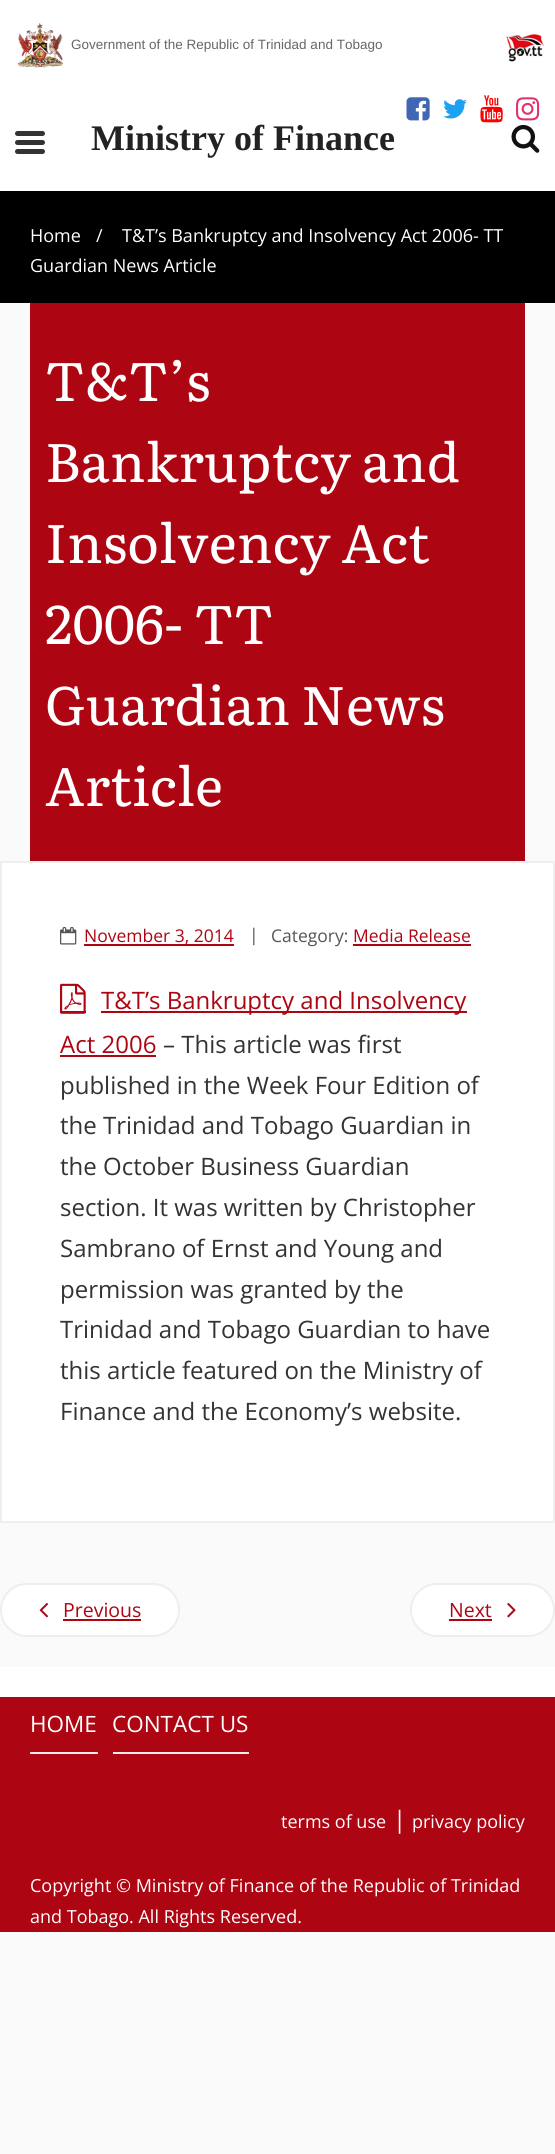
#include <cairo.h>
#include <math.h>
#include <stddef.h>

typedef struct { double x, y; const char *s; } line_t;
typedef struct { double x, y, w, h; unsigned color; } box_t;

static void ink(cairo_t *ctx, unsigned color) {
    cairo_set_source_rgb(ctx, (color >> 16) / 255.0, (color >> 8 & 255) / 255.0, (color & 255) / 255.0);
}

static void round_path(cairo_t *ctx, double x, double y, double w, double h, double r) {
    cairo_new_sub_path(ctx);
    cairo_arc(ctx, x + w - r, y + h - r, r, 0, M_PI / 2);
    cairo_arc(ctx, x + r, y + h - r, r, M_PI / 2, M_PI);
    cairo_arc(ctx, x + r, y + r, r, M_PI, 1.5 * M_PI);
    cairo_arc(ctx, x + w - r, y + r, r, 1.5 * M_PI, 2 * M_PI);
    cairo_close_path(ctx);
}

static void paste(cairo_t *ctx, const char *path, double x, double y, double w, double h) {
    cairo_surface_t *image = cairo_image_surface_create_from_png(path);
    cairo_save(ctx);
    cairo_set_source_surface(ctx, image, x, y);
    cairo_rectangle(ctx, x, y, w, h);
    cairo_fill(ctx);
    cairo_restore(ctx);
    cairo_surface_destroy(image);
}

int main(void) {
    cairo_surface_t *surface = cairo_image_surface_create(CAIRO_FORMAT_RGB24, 555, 2154);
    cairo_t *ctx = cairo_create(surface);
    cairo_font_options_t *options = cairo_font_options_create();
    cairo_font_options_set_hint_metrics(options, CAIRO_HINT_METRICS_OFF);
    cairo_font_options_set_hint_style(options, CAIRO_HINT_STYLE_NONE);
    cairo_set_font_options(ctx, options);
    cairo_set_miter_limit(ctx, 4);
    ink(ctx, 0xFAFAFA);
    cairo_paint(ctx);
    ink(ctx, 0xFFFFFF);
    cairo_rectangle(ctx, 0, 0, 555, 191);
    cairo_fill(ctx);
    paste(ctx, "media/1.png", 18, 23, 45, 45);
    cairo_select_font_face(ctx, "Liberation Sans", CAIRO_FONT_SLANT_NORMAL, CAIRO_FONT_WEIGHT_NORMAL);
    cairo_set_font_size(ctx, 13.5);
    ink(ctx, 0x666666);
    cairo_move_to(ctx, 71, 49);
    cairo_show_text(ctx, "Government of the Republic of Trinidad and Tobago");
    paste(ctx, "media/2.png", 506, 34, 38, 28);
    ink(ctx, 0x333333);
    round_path(ctx, 15, 131, 30, 5, 2.5);
    cairo_fill(ctx);
    round_path(ctx, 15, 140, 30, 5, 2.5);
    cairo_fill(ctx);
    round_path(ctx, 15, 149, 30, 5, 2.5);
    cairo_fill(ctx);
    cairo_select_font_face(ctx, "Liberation Serif", CAIRO_FONT_SLANT_NORMAL, CAIRO_FONT_WEIGHT_BOLD);
    cairo_set_font_size(ctx, 36);
    ink(ctx, 0x222222);
    cairo_move_to(ctx, 91, 150);
    cairo_show_text(ctx, "Ministry of Finance");
    paste(ctx, "media/3.png", 406, 97, 24, 24);
    paste(ctx, "media/4.png", 443, 99, 24, 20);
    paste(ctx, "media/5.png", 480, 95, 23, 28);
    paste(ctx, "media/6.png", 516, 97, 24, 24);
    paste(ctx, "media/7.png", 511, 124, 29, 29);
    ink(ctx, 0x000000);
    cairo_rectangle(ctx, 0, 191, 555, 112);
    cairo_fill(ctx);
    cairo_select_font_face(ctx, "Open Sans", CAIRO_FONT_SLANT_NORMAL, CAIRO_FONT_WEIGHT_NORMAL);
    cairo_set_font_size(ctx, 18);
    ink(ctx, 0xFFFFFF);
    {
        static const line_t items[] = {
            {30, 242, "Home"},
            {96, 242, "/"},
            {122, 242, "T&T’s Bankruptcy and Insolvency Act 2006- TT"},
            {30, 272, "Guardian News Article"},
        };
        for (size_t i = 0; i < sizeof items / sizeof *items; i++) {
            cairo_move_to(ctx, items[i].x, items[i].y);
            cairo_show_text(ctx, items[i].s);
        }
    }
    ink(ctx, 0xAD0512);
    cairo_rectangle(ctx, 30, 303, 495, 558);
    cairo_fill(ctx);
    cairo_select_font_face(ctx, "Literata", CAIRO_FONT_SLANT_NORMAL, CAIRO_FONT_WEIGHT_NORMAL);
    cairo_set_font_size(ctx, 54);
    ink(ctx, 0xFFFFFF);
    {
        static const line_t items[] = {
            {45, 401, "T&T’s"},
            {45, 482, "Bankruptcy and"},
            {45, 563, "Insolvency Act"},
            {45, 644, "2006- TT"},
            {45, 725, "Guardian News"},
            {45, 806, "Article"},
        };
        for (size_t i = 0; i < sizeof items / sizeof *items; i++) {
            cairo_move_to(ctx, items[i].x, items[i].y);
            cairo_show_text(ctx, items[i].s);
        }
    }
    cairo_rectangle(ctx, 1, 862, 553, 660);
    cairo_fill_preserve(ctx);
    ink(ctx, 0xEEEEEE);
    cairo_stroke(ctx);
    paste(ctx, "media/8.png", 60, 926, 17, 19);
    ink(ctx, 0xAD0512);
    cairo_rectangle(ctx, 84, 944, 150, 2);
    cairo_fill(ctx);
    cairo_select_font_face(ctx, "Open Sans", CAIRO_FONT_SLANT_NORMAL, CAIRO_FONT_WEIGHT_NORMAL);
    cairo_set_font_size(ctx, 17.5);
    cairo_move_to(ctx, 84, 942);
    cairo_show_text(ctx, "November 3, 2014");
    ink(ctx, 0x555555);
    cairo_move_to(ctx, 249, 941);
    cairo_show_text(ctx, "|");
    cairo_move_to(ctx, 271, 942);
    cairo_show_text(ctx, "Category:");
    ink(ctx, 0xAD0512);
    cairo_move_to(ctx, 353, 942);
    cairo_show_text(ctx, "Media Release");
    cairo_rectangle(ctx, 353, 944, 118, 2);
    cairo_fill(ctx);
    cairo_rectangle(ctx, 60, 1011, 26, 2);
    cairo_fill(ctx);
    paste(ctx, "media/9.png", 60, 983, 26, 31);
    cairo_rectangle(ctx, 101, 1011, 366, 2);
    cairo_fill(ctx);
    cairo_set_font_size(ctx, 24);
    cairo_move_to(ctx, 101, 1009);
    cairo_show_text(ctx, "T&T’s Bankruptcy and Insolvency");
    cairo_move_to(ctx, 60, 1053);
    cairo_show_text(ctx, "Act 2006");
    cairo_rectangle(ctx, 60, 1055, 96, 2);
    cairo_fill(ctx);
    ink(ctx, 0x333333);
    {
        static const line_t items[] = {
            {163, 1053, "– This article was first"},
            {60, 1094, "published in the Week Four Edition of"},
            {60, 1134, "the Trinidad and Tobago Guardian in"},
            {60, 1175, "the October Business Guardian"},
            {60, 1216, "section. It was written by Christopher"},
            {60, 1257, "Sambrano of Ernst and Young and"},
            {60, 1298, "permission was granted by the"},
            {60, 1338, "Trinidad and Tobago Guardian to have"},
            {60, 1379, "this article featured on the Ministry of"},
            {60, 1420, "Finance and the Economy’s website."},
        };
        for (size_t i = 0; i < sizeof items / sizeof *items; i++) {
            cairo_move_to(ctx, items[i].x, items[i].y);
            cairo_show_text(ctx, items[i].s);
        }
    }
    ink(ctx, 0xFFFFFF);
    round_path(ctx, 1, 1584, 178, 52, 26);
    cairo_fill_preserve(ctx);
    ink(ctx, 0xEEEEEE);
    cairo_stroke(ctx);
    paste(ctx, "media/10.png", 39, 1603, 10, 15);
    cairo_set_font_size(ctx, 19.5);
    ink(ctx, 0xAD0512);
    cairo_move_to(ctx, 63, 1617);
    cairo_show_text(ctx, "Previous");
    cairo_rectangle(ctx, 63, 1619, 78, 2);
    cairo_fill(ctx);
    ink(ctx, 0xFFFFFF);
    round_path(ctx, 411, 1584, 143, 52, 26);
    cairo_fill_preserve(ctx);
    ink(ctx, 0xEEEEEE);
    cairo_stroke(ctx);
    ink(ctx, 0xAD0512);
    cairo_move_to(ctx, 449, 1617);
    cairo_show_text(ctx, "Next");
    cairo_rectangle(ctx, 449, 1619, 43, 2);
    cairo_fill(ctx);
    paste(ctx, "media/11.png", 507, 1603, 9, 15);
    {
        static const box_t items[] = {
            {0, 1667, 555, 30, 0xFFFFFF},
            {0, 1697, 555, 235, 0xAD0512},
            {30, 1752, 68, 2, 0xEEEEEE},
        };
        for (size_t i = 0; i < sizeof items / sizeof *items; i++) {
            ink(ctx, items[i].color);
            cairo_rectangle(ctx, items[i].x, items[i].y, items[i].w, items[i].h);
            cairo_fill(ctx);
        }
    }
    cairo_set_font_size(ctx, 22.5);
    ink(ctx, 0xFFFFFF);
    cairo_move_to(ctx, 30, 1732);
    cairo_show_text(ctx, "HOME");
    ink(ctx, 0xEEEEEE);
    cairo_rectangle(ctx, 113, 1752, 136, 2);
    cairo_fill(ctx);
    ink(ctx, 0xFFFFFF);
    cairo_move_to(ctx, 112, 1732);
    cairo_show_text(ctx, "CONTACT US");
    cairo_set_font_size(ctx, 18);
    cairo_move_to(ctx, 281, 1828);
    cairo_show_text(ctx, "terms of use");
    cairo_set_font_size(ctx, 24);
    cairo_move_to(ctx, 393, 1828);
    cairo_show_text(ctx, "|");
    cairo_set_font_size(ctx, 18);
    {
        static const line_t items[] = {
            {412, 1828, "privacy policy"},
            {30, 1892, "Copyright © Ministry of Finance of the Republic of Trinidad"},
            {30, 1923, "and Tobago. All Rights Reserved."},
        };
        for (size_t i = 0; i < sizeof items / sizeof *items; i++) {
            cairo_move_to(ctx, items[i].x, items[i].y);
            cairo_show_text(ctx, items[i].s);
        }
    }
    cairo_surface_write_to_png(surface, "image.png");
    cairo_font_options_destroy(options);
    cairo_destroy(ctx);
    cairo_surface_destroy(surface);
    return 0;
}
